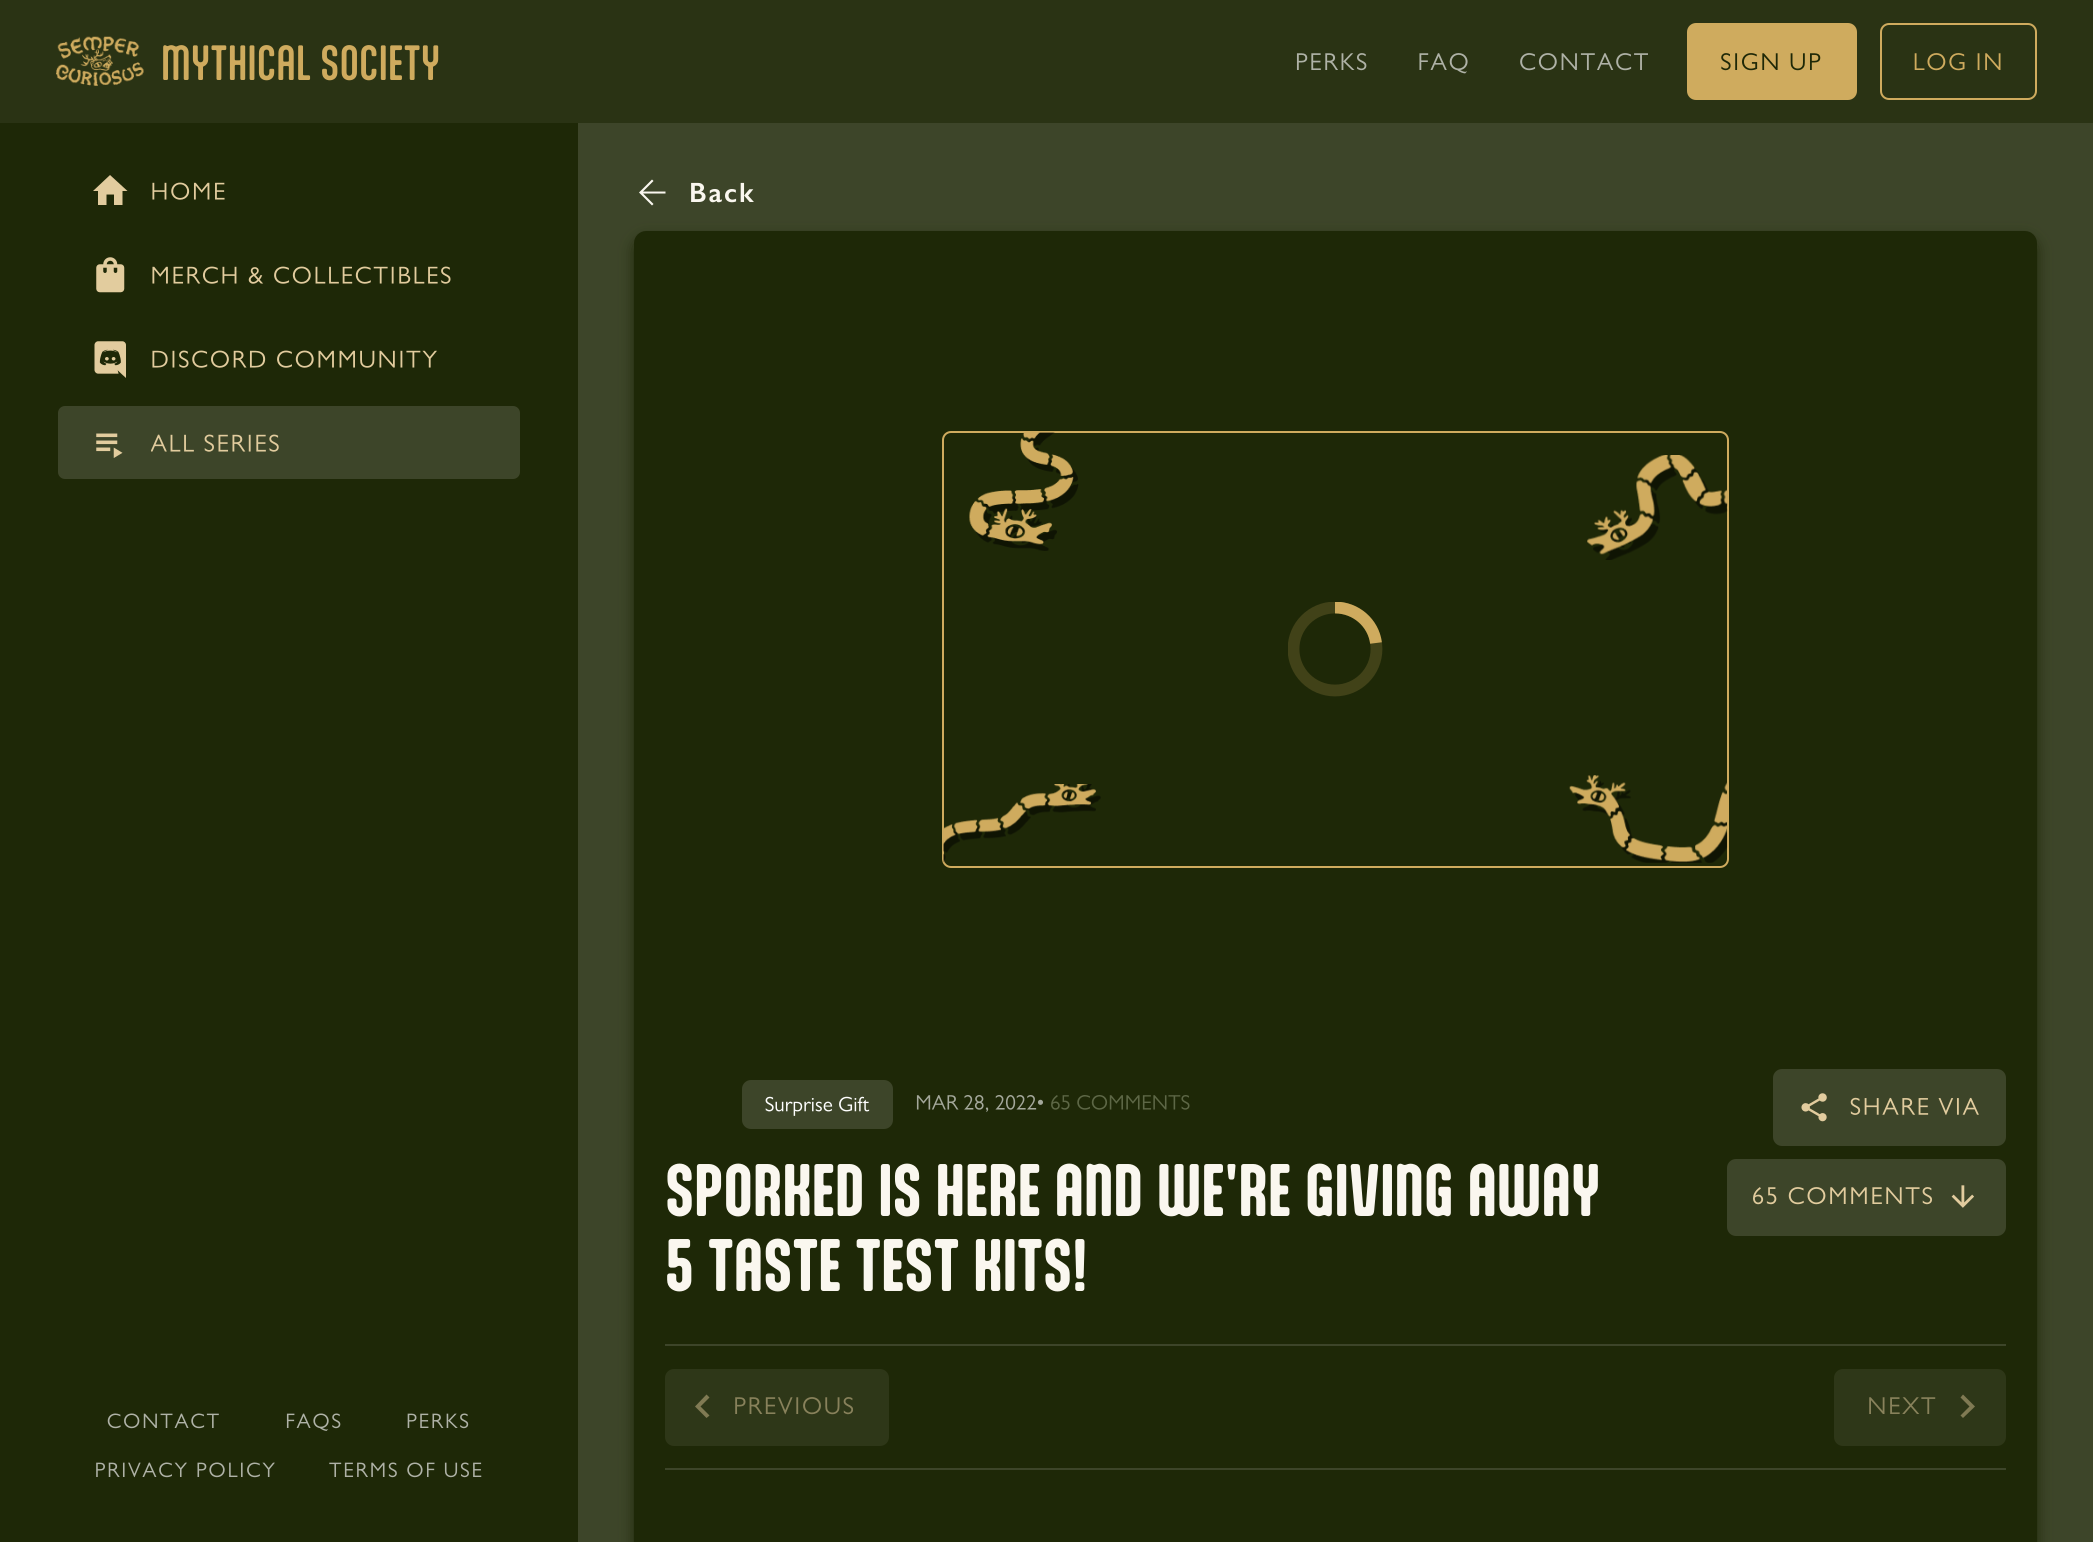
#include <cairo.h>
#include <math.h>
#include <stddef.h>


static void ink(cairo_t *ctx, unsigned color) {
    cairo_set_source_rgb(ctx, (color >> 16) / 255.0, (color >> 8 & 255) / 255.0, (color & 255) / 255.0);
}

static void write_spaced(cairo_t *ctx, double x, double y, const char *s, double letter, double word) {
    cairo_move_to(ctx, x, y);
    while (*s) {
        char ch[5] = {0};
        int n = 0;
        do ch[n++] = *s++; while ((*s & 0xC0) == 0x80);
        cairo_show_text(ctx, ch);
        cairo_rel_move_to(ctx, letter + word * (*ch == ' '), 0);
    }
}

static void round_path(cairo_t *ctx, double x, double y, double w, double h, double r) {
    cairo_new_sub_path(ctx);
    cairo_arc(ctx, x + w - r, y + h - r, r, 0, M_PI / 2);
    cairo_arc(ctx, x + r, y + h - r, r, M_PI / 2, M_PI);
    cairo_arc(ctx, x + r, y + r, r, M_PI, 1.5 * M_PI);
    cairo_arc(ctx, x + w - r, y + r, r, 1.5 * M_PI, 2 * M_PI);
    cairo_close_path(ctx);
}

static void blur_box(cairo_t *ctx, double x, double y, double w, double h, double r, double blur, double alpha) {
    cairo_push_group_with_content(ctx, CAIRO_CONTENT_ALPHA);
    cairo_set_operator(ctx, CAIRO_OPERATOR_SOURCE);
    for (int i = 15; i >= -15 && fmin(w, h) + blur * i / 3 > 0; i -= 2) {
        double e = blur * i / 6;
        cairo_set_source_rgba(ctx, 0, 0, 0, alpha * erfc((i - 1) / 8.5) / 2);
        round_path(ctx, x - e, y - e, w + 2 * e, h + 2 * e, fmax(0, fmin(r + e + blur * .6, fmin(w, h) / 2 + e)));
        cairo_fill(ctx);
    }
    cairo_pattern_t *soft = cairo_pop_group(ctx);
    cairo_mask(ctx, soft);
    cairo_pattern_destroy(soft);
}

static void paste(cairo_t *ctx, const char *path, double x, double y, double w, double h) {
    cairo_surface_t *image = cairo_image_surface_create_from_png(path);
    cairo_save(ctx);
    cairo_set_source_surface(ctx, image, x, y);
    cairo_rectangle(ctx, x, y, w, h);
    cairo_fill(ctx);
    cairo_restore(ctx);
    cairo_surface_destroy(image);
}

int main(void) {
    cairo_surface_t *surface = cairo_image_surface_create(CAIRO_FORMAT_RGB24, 2093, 1542);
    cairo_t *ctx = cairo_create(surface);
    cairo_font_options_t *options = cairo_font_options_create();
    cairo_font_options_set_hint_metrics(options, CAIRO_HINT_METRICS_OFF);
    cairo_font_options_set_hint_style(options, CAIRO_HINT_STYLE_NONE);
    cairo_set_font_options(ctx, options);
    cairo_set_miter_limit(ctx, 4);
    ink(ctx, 0x3D4529);
    cairo_paint(ctx);
    ink(ctx, 0x2A3314);
    cairo_rectangle(ctx, 0, 0, 2093, 123);
    cairo_fill(ctx);
    paste(ctx, "media/1.png", 56, 36, 88, 50);
    cairo_select_font_face(ctx, "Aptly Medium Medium", CAIRO_FONT_SLANT_NORMAL, CAIRO_FONT_WEIGHT_NORMAL);
    cairo_set_font_size(ctx, 42);
    ink(ctx, 0xCFAB5E);
    cairo_move_to(ctx, 161, 80);
    cairo_show_text(ctx, "MYTHICAL SOCIETY");
    paste(ctx, "media/2.png", 1296, 53, 71, 18);
    paste(ctx, "media/3.png", 1419, 53, 49, 21);
    paste(ctx, "media/4.png", 1520, 53, 128, 18);
    round_path(ctx, 1688, 24, 168, 75, 8);
    cairo_fill_preserve(ctx);
    cairo_stroke(ctx);
    paste(ctx, "media/5.png", 1721, 53, 100, 18);
    round_path(ctx, 1881, 24, 155, 75, 8);
    cairo_stroke(ctx);
    paste(ctx, "media/6.png", 1914, 53, 87, 18);
    ink(ctx, 0x1E2807);
    cairo_rectangle(ctx, 0, 123, 578, 1419);
    cairo_fill(ctx);
    ink(ctx, 0xE2CC9E);
    cairo_new_path(ctx);
    cairo_move_to(ctx, 106.5, 205);
    cairo_line_to(ctx, 106.5, 194.5);
    cairo_line_to(ctx, 114, 194.5);
    cairo_line_to(ctx, 114, 205);
    cairo_line_to(ctx, 122.5, 205);
    cairo_line_to(ctx, 122.5, 191);
    cairo_line_to(ctx, 127.5, 191);
    cairo_line_to(ctx, 110, 175);
    cairo_line_to(ctx, 93, 191);
    cairo_line_to(ctx, 98, 191);
    cairo_line_to(ctx, 98, 205);
    cairo_close_path(ctx);
    cairo_fill(ctx);
    paste(ctx, "media/7.png", 152, 182, 73, 18);
    paste(ctx, "media/8.png", 96, 257, 29, 36);
    paste(ctx, "media/9.png", 152, 266, 299, 18);
    paste(ctx, "media/10.png", 94, 341, 32, 37);
    paste(ctx, "media/11.png", 152, 350, 285, 18);
    ink(ctx, 0x3D4529);
    round_path(ctx, 57, 405, 464, 75, 8);
    cairo_fill_preserve(ctx);
    ink(ctx, 0x1E2807);
    cairo_stroke(ctx);
    paste(ctx, "media/12.png", 96, 433, 27, 25);
    paste(ctx, "media/13.png", 151, 434, 128, 18);
    paste(ctx, "media/14.png", 107, 1413, 112, 16);
    paste(ctx, "media/15.png", 286, 1413, 55, 18);
    paste(ctx, "media/16.png", 407, 1413, 62, 16);
    paste(ctx, "media/17.png", 96, 1462, 179, 16);
    paste(ctx, "media/18.png", 329, 1462, 153, 16);
    ink(ctx, 0xFAF7EF);
    cairo_new_path(ctx);
    cairo_move_to(ctx, 653.5, 181);
    cairo_line_to(ctx, 643, 191.5);
    cairo_line_to(ctx, 665.5, 191.5);
    cairo_line_to(ctx, 665.5, 193.5);
    cairo_line_to(ctx, 643, 193.5);
    cairo_line_to(ctx, 653.5, 204);
    cairo_line_to(ctx, 652, 205.5);
    cairo_line_to(ctx, 639, 192.5);
    cairo_line_to(ctx, 652, 179.5);
    cairo_close_path(ctx);
    cairo_fill(ctx);
    cairo_select_font_face(ctx, "Gill Sans SemiBold", CAIRO_FONT_SLANT_NORMAL, CAIRO_FONT_WEIGHT_NORMAL);
    cairo_set_font_size(ctx, 28);
    write_spaced(ctx, 689, 202, "Back", 2, 0);
    ink(ctx, 0x1E2807);
    blur_box(ctx, 634, 238, 1403, 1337, 12, 7, 1);
    ink(ctx, 0x1E2807);
    cairo_new_path(ctx);
    cairo_move_to(ctx, 646, 231);
    cairo_line_to(ctx, 2025, 231);
    cairo_curve_to(ctx, 2031.5, 231, 2037, 236.5, 2037, 243);
    cairo_line_to(ctx, 2037, 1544);
    cairo_line_to(ctx, 634, 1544);
    cairo_line_to(ctx, 634, 243);
    cairo_curve_to(ctx, 634, 236.5, 639.5, 231, 646, 231);
    cairo_close_path(ctx);
    cairo_fill(ctx);
    round_path(ctx, 943, 432, 785, 435, 8);
    ink(ctx, 0xCFAB5E);
    cairo_stroke(ctx);
    paste(ctx, "media/19.png", 969, 432, 110, 119);
    paste(ctx, "media/20.png", 1587, 455, 141, 105);
    cairo_save(ctx);
    cairo_rectangle(ctx, 1288, 602, 95, 95);
    cairo_clip(ctx);
    cairo_arc(ctx, 1335, 649, 41.5, 0, 2 * M_PI);
    ink(ctx, 0x414218);
    cairo_set_line_width(ctx, 11.8);
    cairo_stroke(ctx);
    cairo_new_path(ctx);
    cairo_move_to(ctx, 1335, 607.5);
    cairo_curve_to(ctx, 1356, 607.5, 1373.5, 623, 1376, 643);
    ink(ctx, 0xCFAB5E);
    cairo_stroke(ctx);
    cairo_restore(ctx);
    paste(ctx, "media/21.png", 943, 784, 158, 79);
    paste(ctx, "media/22.png", 1569, 775, 159, 88);
    ink(ctx, 0x3D4529);
    round_path(ctx, 742, 1080, 151, 49, 9);
    cairo_fill(ctx);
    paste(ctx, "media/23.png", 765, 1096, 105, 20);
    paste(ctx, "media/24.png", 916, 1095, 121, 17);
    paste(ctx, "media/25.png", 1037, 1099, 6, 6);
    paste(ctx, "media/26.png", 1051, 1095, 19, 15);
    paste(ctx, "media/27.png", 1077, 1095, 113, 15);
    cairo_select_font_face(ctx, "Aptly", CAIRO_FONT_SLANT_NORMAL, CAIRO_FONT_WEIGHT_BOLD);
    cairo_set_font_size(ctx, 63);
    ink(ctx, 0xFAF7EF);
    cairo_move_to(ctx, 665, 1216);
    cairo_show_text(ctx, "SPORKED IS HERE AND WE'RE GIVING AWAY");
    cairo_move_to(ctx, 665, 1291);
    cairo_show_text(ctx, "5 TASTE TEST KITS!");
    ink(ctx, 0x3D4529);
    round_path(ctx, 1774, 1070, 231, 75, 8);
    cairo_fill_preserve(ctx);
    cairo_stroke(ctx);
    paste(ctx, "media/28.png", 1801, 1093, 26, 29);
    paste(ctx, "media/29.png", 1850, 1097, 129, 18);
    round_path(ctx, 1728, 1160, 277, 75, 8);
    cairo_fill_preserve(ctx);
    cairo_stroke(ctx);
    paste(ctx, "media/30.png", 1753, 1187, 179, 18);
    paste(ctx, "media/31.png", 1951, 1185, 23, 23);
    cairo_rectangle(ctx, 665, 1344, 1341, 2);
    cairo_fill(ctx);
    cairo_rectangle(ctx, 665, 1468, 1341, 2);
    cairo_fill(ctx);
    ink(ctx, 0x2E3718);
    round_path(ctx, 666, 1370, 222, 75, 8);
    cairo_fill_preserve(ctx);
    cairo_stroke(ctx);
    ink(ctx, 0x807A53);
    cairo_new_path(ctx);
    cairo_move_to(ctx, 709.5, 1397.5);
    cairo_line_to(ctx, 706.5, 1394.5);
    cairo_line_to(ctx, 695, 1406.5);
    cairo_line_to(ctx, 706.5, 1418);
    cairo_line_to(ctx, 709.5, 1415.5);
    cairo_line_to(ctx, 700.5, 1406.5);
    cairo_close_path(ctx);
    cairo_fill(ctx);
    paste(ctx, "media/32.png", 735, 1397, 118, 18);
    ink(ctx, 0x2E3718);
    round_path(ctx, 1835, 1370, 170, 75, 8);
    cairo_fill_preserve(ctx);
    cairo_stroke(ctx);
    paste(ctx, "media/33.png", 1869, 1397, 67, 17);
    ink(ctx, 0x807A53);
    cairo_new_path(ctx);
    cairo_move_to(ctx, 1963, 1394.5);
    cairo_line_to(ctx, 1960.5, 1397.5);
    cairo_line_to(ctx, 1969.5, 1406.5);
    cairo_line_to(ctx, 1960.5, 1415.5);
    cairo_line_to(ctx, 1963, 1418);
    cairo_line_to(ctx, 1975, 1406.5);
    cairo_close_path(ctx);
    cairo_fill(ctx);
    cairo_surface_write_to_png(surface, "image.png");
    cairo_font_options_destroy(options);
    cairo_destroy(ctx);
    cairo_surface_destroy(surface);
    return 0;
}
